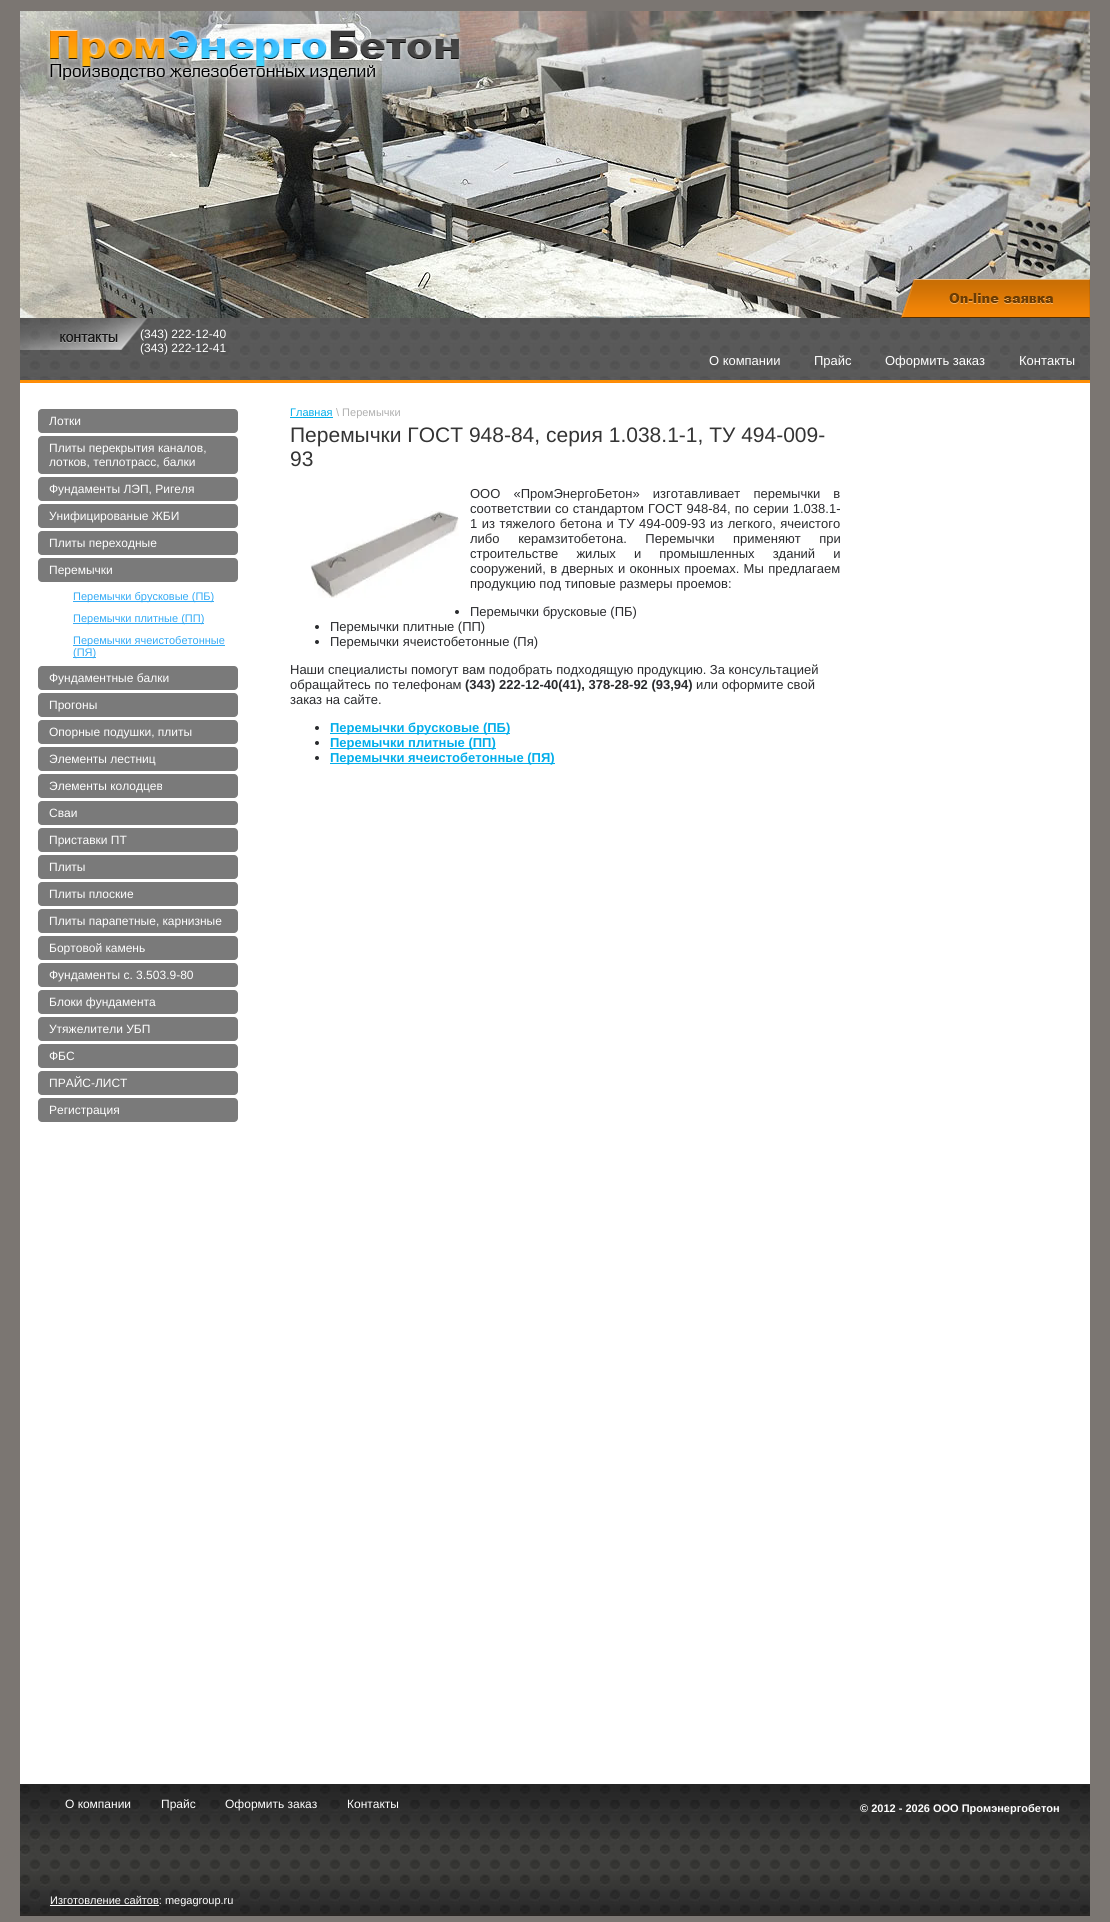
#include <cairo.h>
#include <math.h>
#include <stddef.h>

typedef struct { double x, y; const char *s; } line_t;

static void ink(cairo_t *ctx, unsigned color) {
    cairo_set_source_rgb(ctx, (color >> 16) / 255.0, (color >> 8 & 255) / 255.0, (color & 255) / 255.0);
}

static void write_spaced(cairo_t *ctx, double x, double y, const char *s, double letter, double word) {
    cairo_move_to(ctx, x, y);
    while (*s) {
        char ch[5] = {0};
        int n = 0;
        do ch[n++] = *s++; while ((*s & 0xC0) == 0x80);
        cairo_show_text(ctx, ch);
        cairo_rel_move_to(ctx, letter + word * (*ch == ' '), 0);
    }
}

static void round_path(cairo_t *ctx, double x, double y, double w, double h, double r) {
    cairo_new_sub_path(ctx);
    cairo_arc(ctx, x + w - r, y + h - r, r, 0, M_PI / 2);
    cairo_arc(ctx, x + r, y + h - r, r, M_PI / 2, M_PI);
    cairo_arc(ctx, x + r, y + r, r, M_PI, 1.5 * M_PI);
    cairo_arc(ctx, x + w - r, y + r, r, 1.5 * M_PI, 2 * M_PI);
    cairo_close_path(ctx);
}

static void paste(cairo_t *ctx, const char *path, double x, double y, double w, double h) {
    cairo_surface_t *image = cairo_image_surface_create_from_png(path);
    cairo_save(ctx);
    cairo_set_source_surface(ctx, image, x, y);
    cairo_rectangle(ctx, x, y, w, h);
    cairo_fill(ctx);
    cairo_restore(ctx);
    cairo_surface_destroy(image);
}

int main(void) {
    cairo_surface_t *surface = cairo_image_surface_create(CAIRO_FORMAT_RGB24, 1110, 1922);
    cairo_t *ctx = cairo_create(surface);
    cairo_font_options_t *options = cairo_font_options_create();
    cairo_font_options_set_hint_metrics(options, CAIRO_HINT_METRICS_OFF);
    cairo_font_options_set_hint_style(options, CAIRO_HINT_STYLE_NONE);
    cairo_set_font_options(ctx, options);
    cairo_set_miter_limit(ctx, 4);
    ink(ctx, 0x7B7672);
    cairo_paint(ctx);
    paste(ctx, "media/1.png", 20, 318, 1070, 65);
    paste(ctx, "media/2.png", 20, 11, 1070, 307);
    paste(ctx, "media/3.png", 47, 27, 415, 56);
    paste(ctx, "media/4.png", 901, 279, 189, 39);
    paste(ctx, "media/5.png", 20, 318, 128, 32);
    cairo_select_font_face(ctx, "Liberation Sans", CAIRO_FONT_SLANT_NORMAL, CAIRO_FONT_WEIGHT_NORMAL);
    cairo_set_font_size(ctx, 12);
    ink(ctx, 0xFFFFFF);
    cairo_move_to(ctx, 140, 338);
    cairo_show_text(ctx, "(343) 222-12-40");
    cairo_move_to(ctx, 140, 352);
    cairo_show_text(ctx, "(343) 222-12-41");
    cairo_set_font_size(ctx, 13);
    {
        static const line_t items[] = {
            {709, 365, "О компании"},
            {814, 365, "Прайс"},
            {885, 365, "Оформить заказ"},
            {1019, 365, "Контакты"},
        };
        for (size_t i = 0; i < sizeof items / sizeof *items; i++) {
            cairo_move_to(ctx, items[i].x, items[i].y);
            cairo_show_text(ctx, items[i].s);
        }
    }
    cairo_rectangle(ctx, 20, 383, 1070, 1401);
    cairo_fill(ctx);
    ink(ctx, 0x7A7A7A);
    round_path(ctx, 38, 409, 200, 24, 4);
    cairo_fill(ctx);
    cairo_set_font_size(ctx, 12);
    ink(ctx, 0xFFFFFF);
    cairo_move_to(ctx, 49, 425);
    cairo_show_text(ctx, "Лотки");
    ink(ctx, 0x7A7A7A);
    round_path(ctx, 38, 436, 200, 38, 4);
    cairo_fill(ctx);
    ink(ctx, 0xFFFFFF);
    cairo_move_to(ctx, 49, 452);
    cairo_show_text(ctx, "Плиты перекрытия каналов,");
    cairo_move_to(ctx, 49, 466);
    cairo_show_text(ctx, "лотков, теплотрасс, балки");
    ink(ctx, 0x7A7A7A);
    round_path(ctx, 38, 477, 200, 24, 4);
    cairo_fill(ctx);
    ink(ctx, 0xFFFFFF);
    cairo_move_to(ctx, 49, 493);
    cairo_show_text(ctx, "Фундаменты ЛЭП, Ригеля");
    ink(ctx, 0x7A7A7A);
    round_path(ctx, 38, 504, 200, 24, 4);
    cairo_fill(ctx);
    ink(ctx, 0xFFFFFF);
    cairo_move_to(ctx, 49, 520);
    cairo_show_text(ctx, "Унифицированые ЖБИ");
    ink(ctx, 0x7A7A7A);
    round_path(ctx, 38, 531, 200, 24, 4);
    cairo_fill(ctx);
    ink(ctx, 0xFFFFFF);
    cairo_move_to(ctx, 49, 547);
    cairo_show_text(ctx, "Плиты переходные");
    ink(ctx, 0x7A7A7A);
    round_path(ctx, 38, 558, 200, 24, 4);
    cairo_fill(ctx);
    ink(ctx, 0xFFFFFF);
    cairo_move_to(ctx, 49, 574);
    cairo_show_text(ctx, "Перемычки");
    ink(ctx, 0x35ABF5);
    cairo_rectangle(ctx, 73, 601, 141, 1);
    cairo_fill(ctx);
    cairo_set_font_size(ctx, 11);
    cairo_move_to(ctx, 73, 600);
    cairo_show_text(ctx, "Перемычки брусковые (ПБ)");
    cairo_rectangle(ctx, 73, 623, 131, 1);
    cairo_fill(ctx);
    cairo_move_to(ctx, 73, 622);
    cairo_show_text(ctx, "Перемычки плитные (ПП)");
    cairo_rectangle(ctx, 73, 645, 152, 1);
    cairo_fill(ctx);
    cairo_move_to(ctx, 73, 644);
    cairo_show_text(ctx, "Перемычки ячеистобетонные");
    cairo_rectangle(ctx, 73, 657, 23, 1);
    cairo_fill(ctx);
    cairo_move_to(ctx, 73, 656);
    cairo_show_text(ctx, "(ПЯ)");
    ink(ctx, 0x7A7A7A);
    round_path(ctx, 38, 666, 200, 24, 4);
    cairo_fill(ctx);
    cairo_set_font_size(ctx, 12);
    ink(ctx, 0xFFFFFF);
    cairo_move_to(ctx, 49, 682);
    cairo_show_text(ctx, "Фундаментные балки");
    ink(ctx, 0x7A7A7A);
    round_path(ctx, 38, 693, 200, 24, 4);
    cairo_fill(ctx);
    ink(ctx, 0xFFFFFF);
    cairo_move_to(ctx, 49, 709);
    cairo_show_text(ctx, "Прогоны");
    ink(ctx, 0x7A7A7A);
    round_path(ctx, 38, 720, 200, 24, 4);
    cairo_fill(ctx);
    ink(ctx, 0xFFFFFF);
    cairo_move_to(ctx, 49, 736);
    cairo_show_text(ctx, "Опорные подушки, плиты");
    ink(ctx, 0x7A7A7A);
    round_path(ctx, 38, 747, 200, 24, 4);
    cairo_fill(ctx);
    ink(ctx, 0xFFFFFF);
    cairo_move_to(ctx, 49, 763);
    cairo_show_text(ctx, "Элементы лестниц");
    ink(ctx, 0x7A7A7A);
    round_path(ctx, 38, 774, 200, 24, 4);
    cairo_fill(ctx);
    ink(ctx, 0xFFFFFF);
    cairo_move_to(ctx, 49, 790);
    cairo_show_text(ctx, "Элементы колодцев");
    ink(ctx, 0x7A7A7A);
    round_path(ctx, 38, 801, 200, 24, 4);
    cairo_fill(ctx);
    ink(ctx, 0xFFFFFF);
    cairo_move_to(ctx, 49, 817);
    cairo_show_text(ctx, "Сваи");
    ink(ctx, 0x7A7A7A);
    round_path(ctx, 38, 828, 200, 24, 4);
    cairo_fill(ctx);
    ink(ctx, 0xFFFFFF);
    cairo_move_to(ctx, 49, 844);
    cairo_show_text(ctx, "Приставки ПТ");
    ink(ctx, 0x7A7A7A);
    round_path(ctx, 38, 855, 200, 24, 4);
    cairo_fill(ctx);
    ink(ctx, 0xFFFFFF);
    cairo_move_to(ctx, 49, 871);
    cairo_show_text(ctx, "Плиты");
    ink(ctx, 0x7A7A7A);
    round_path(ctx, 38, 882, 200, 24, 4);
    cairo_fill(ctx);
    ink(ctx, 0xFFFFFF);
    cairo_move_to(ctx, 49, 898);
    cairo_show_text(ctx, "Плиты плоские");
    ink(ctx, 0x7A7A7A);
    round_path(ctx, 38, 909, 200, 24, 4);
    cairo_fill(ctx);
    ink(ctx, 0xFFFFFF);
    cairo_move_to(ctx, 49, 925);
    cairo_show_text(ctx, "Плиты парапетные, карнизные");
    ink(ctx, 0x7A7A7A);
    round_path(ctx, 38, 936, 200, 24, 4);
    cairo_fill(ctx);
    ink(ctx, 0xFFFFFF);
    cairo_move_to(ctx, 49, 952);
    cairo_show_text(ctx, "Бортовой камень");
    ink(ctx, 0x7A7A7A);
    round_path(ctx, 38, 963, 200, 24, 4);
    cairo_fill(ctx);
    ink(ctx, 0xFFFFFF);
    cairo_move_to(ctx, 49, 979);
    cairo_show_text(ctx, "Фундаменты с. 3.503.9-80");
    ink(ctx, 0x7A7A7A);
    round_path(ctx, 38, 990, 200, 24, 4);
    cairo_fill(ctx);
    ink(ctx, 0xFFFFFF);
    cairo_move_to(ctx, 49, 1006);
    cairo_show_text(ctx, "Блоки фундамента");
    ink(ctx, 0x7A7A7A);
    round_path(ctx, 38, 1017, 200, 24, 4);
    cairo_fill(ctx);
    ink(ctx, 0xFFFFFF);
    cairo_move_to(ctx, 49, 1033);
    cairo_show_text(ctx, "Утяжелители УБП");
    ink(ctx, 0x7A7A7A);
    round_path(ctx, 38, 1044, 200, 24, 4);
    cairo_fill(ctx);
    ink(ctx, 0xFFFFFF);
    cairo_move_to(ctx, 49, 1060);
    cairo_show_text(ctx, "ФБС");
    ink(ctx, 0x7A7A7A);
    round_path(ctx, 38, 1071, 200, 24, 4);
    cairo_fill(ctx);
    ink(ctx, 0xFFFFFF);
    cairo_move_to(ctx, 49, 1087);
    cairo_show_text(ctx, "ПРАЙС-ЛИСТ");
    ink(ctx, 0x7A7A7A);
    round_path(ctx, 38, 1098, 200, 24, 4);
    cairo_fill(ctx);
    ink(ctx, 0xFFFFFF);
    cairo_move_to(ctx, 49, 1114);
    cairo_show_text(ctx, "Регистрация");
    cairo_set_font_size(ctx, 11);
    ink(ctx, 0x02ADEA);
    cairo_move_to(ctx, 290, 416);
    cairo_show_text(ctx, "Главная");
    cairo_rectangle(ctx, 290, 417, 43, 1);
    cairo_fill(ctx);
    ink(ctx, 0xB0B0B0);
    cairo_move_to(ctx, 336, 416);
    cairo_show_text(ctx, "\\ Перемычки");
    cairo_set_font_size(ctx, 21);
    ink(ctx, 0x343434);
    cairo_move_to(ctx, 290, 442);
    cairo_show_text(ctx, "Перемычки ГОСТ 948-84, cерия 1.038.1-1, ТУ 494-009-");
    cairo_move_to(ctx, 290, 466);
    cairo_show_text(ctx, "93");
    cairo_set_font_size(ctx, 13);
    ink(ctx, 0x2A2B2E);
    write_spaced(ctx, 470, 498, "ООО «ПромЭнергоБетон» изготавливает перемычки в", 0, 9.5);
    write_spaced(ctx, 470, 513, "соответствии со стандартом ГОСТ 948-84, по cерии 1.038.1-", 0, 0.5);
    paste(ctx, "media/6.png", 310, 511, 149, 87);
    write_spaced(ctx, 470, 528, "1 из тяжелого бетона и ТУ 494-009-93 из легкого, ячеистого", 0, 0.9);
    write_spaced(ctx, 470, 543, "либо керамзитобетона. Перемычки применяют при", 0, 15);
    write_spaced(ctx, 470, 558, "строительстве жилых и промышленных зданий и", 0, 14.5);
    write_spaced(ctx, 470, 573, "сооружений, в дверных и оконных проемах. Мы предлагаем", 0, 0.75);
    cairo_move_to(ctx, 470, 588);
    cairo_show_text(ctx, "продукцию под типовые размеры проемов:");
    cairo_new_path(ctx);
    cairo_arc(ctx, 457, 612, 2, 0, 2 * M_PI);
    cairo_fill(ctx);
    cairo_move_to(ctx, 470, 616);
    cairo_show_text(ctx, "Перемычки брусковые (ПБ)");
    cairo_new_path(ctx);
    cairo_arc(ctx, 317, 627, 2, 0, 2 * M_PI);
    cairo_fill(ctx);
    cairo_move_to(ctx, 330, 631);
    cairo_show_text(ctx, "Перемычки плитные (ПП)");
    cairo_new_path(ctx);
    cairo_arc(ctx, 317, 642, 2, 0, 2 * M_PI);
    cairo_fill(ctx);
    {
        static const line_t items[] = {
            {330, 646, "Перемычки ячеистобетонные (Пя)"},
            {290, 674, "Наши специалисты помогут вам подобрать подходящую продукцию. За консультацией"},
            {290, 689, "обращайтесь по телефонам"},
        };
        for (size_t i = 0; i < sizeof items / sizeof *items; i++) {
            cairo_move_to(ctx, items[i].x, items[i].y);
            cairo_show_text(ctx, items[i].s);
        }
    }
    cairo_select_font_face(ctx, "Liberation Sans", CAIRO_FONT_SLANT_NORMAL, CAIRO_FONT_WEIGHT_BOLD);
    cairo_move_to(ctx, 465, 689);
    cairo_show_text(ctx, "(343) 222-12-40(41), 378-28-92 (93,94)");
    cairo_select_font_face(ctx, "Liberation Sans", CAIRO_FONT_SLANT_NORMAL, CAIRO_FONT_WEIGHT_NORMAL);
    cairo_move_to(ctx, 696, 689);
    cairo_show_text(ctx, "или оформите свой");
    cairo_move_to(ctx, 290, 704);
    cairo_show_text(ctx, "заказ на сайте.");
    cairo_new_path(ctx);
    cairo_arc(ctx, 317, 728, 2, 0, 2 * M_PI);
    cairo_fill(ctx);
    ink(ctx, 0x02ADEA);
    cairo_rectangle(ctx, 330, 733, 180, 1);
    cairo_fill(ctx);
    cairo_select_font_face(ctx, "Liberation Sans", CAIRO_FONT_SLANT_NORMAL, CAIRO_FONT_WEIGHT_BOLD);
    cairo_move_to(ctx, 330, 732);
    cairo_show_text(ctx, "Перемычки брусковые (ПБ)");
    ink(ctx, 0x2A2B2E);
    cairo_new_path(ctx);
    cairo_arc(ctx, 317, 743, 2, 0, 2 * M_PI);
    cairo_fill(ctx);
    ink(ctx, 0x02ADEA);
    cairo_rectangle(ctx, 330, 748, 166, 1);
    cairo_fill(ctx);
    cairo_move_to(ctx, 330, 747);
    cairo_show_text(ctx, "Перемычки плитные (ПП)");
    ink(ctx, 0x2A2B2E);
    cairo_new_path(ctx);
    cairo_arc(ctx, 317, 758, 2, 0, 2 * M_PI);
    cairo_fill(ctx);
    ink(ctx, 0x02ADEA);
    cairo_rectangle(ctx, 330, 763, 225, 1);
    cairo_fill(ctx);
    cairo_move_to(ctx, 330, 762);
    cairo_show_text(ctx, "Перемычки ячеистобетонные (ПЯ)");
    paste(ctx, "media/7.png", 20, 1784, 1070, 132);
    cairo_select_font_face(ctx, "Liberation Sans", CAIRO_FONT_SLANT_NORMAL, CAIRO_FONT_WEIGHT_NORMAL);
    cairo_set_font_size(ctx, 12);
    ink(ctx, 0xFFFFFF);
    {
        static const line_t items[] = {
            {65, 1808, "О компании"},
            {161, 1808, "Прайс"},
            {225, 1808, "Оформить заказ"},
            {347, 1808, "Контакты"},
        };
        for (size_t i = 0; i < sizeof items / sizeof *items; i++) {
            cairo_move_to(ctx, items[i].x, items[i].y);
            cairo_show_text(ctx, items[i].s);
        }
    }
    cairo_select_font_face(ctx, "Liberation Sans", CAIRO_FONT_SLANT_NORMAL, CAIRO_FONT_WEIGHT_BOLD);
    cairo_set_font_size(ctx, 11);
    cairo_move_to(ctx, 860, 1812);
    cairo_show_text(ctx, "© 2012 - 2026 ООО Промэнергобетон");
    cairo_rectangle(ctx, 50, 1905, 109, 1);
    cairo_fill(ctx);
    cairo_select_font_face(ctx, "Liberation Sans", CAIRO_FONT_SLANT_NORMAL, CAIRO_FONT_WEIGHT_NORMAL);
    cairo_move_to(ctx, 50, 1904);
    cairo_show_text(ctx, "Изготовление сайтов: megagroup.ru");
    cairo_surface_write_to_png(surface, "image.png");
    cairo_font_options_destroy(options);
    cairo_destroy(ctx);
    cairo_surface_destroy(surface);
    return 0;
}
